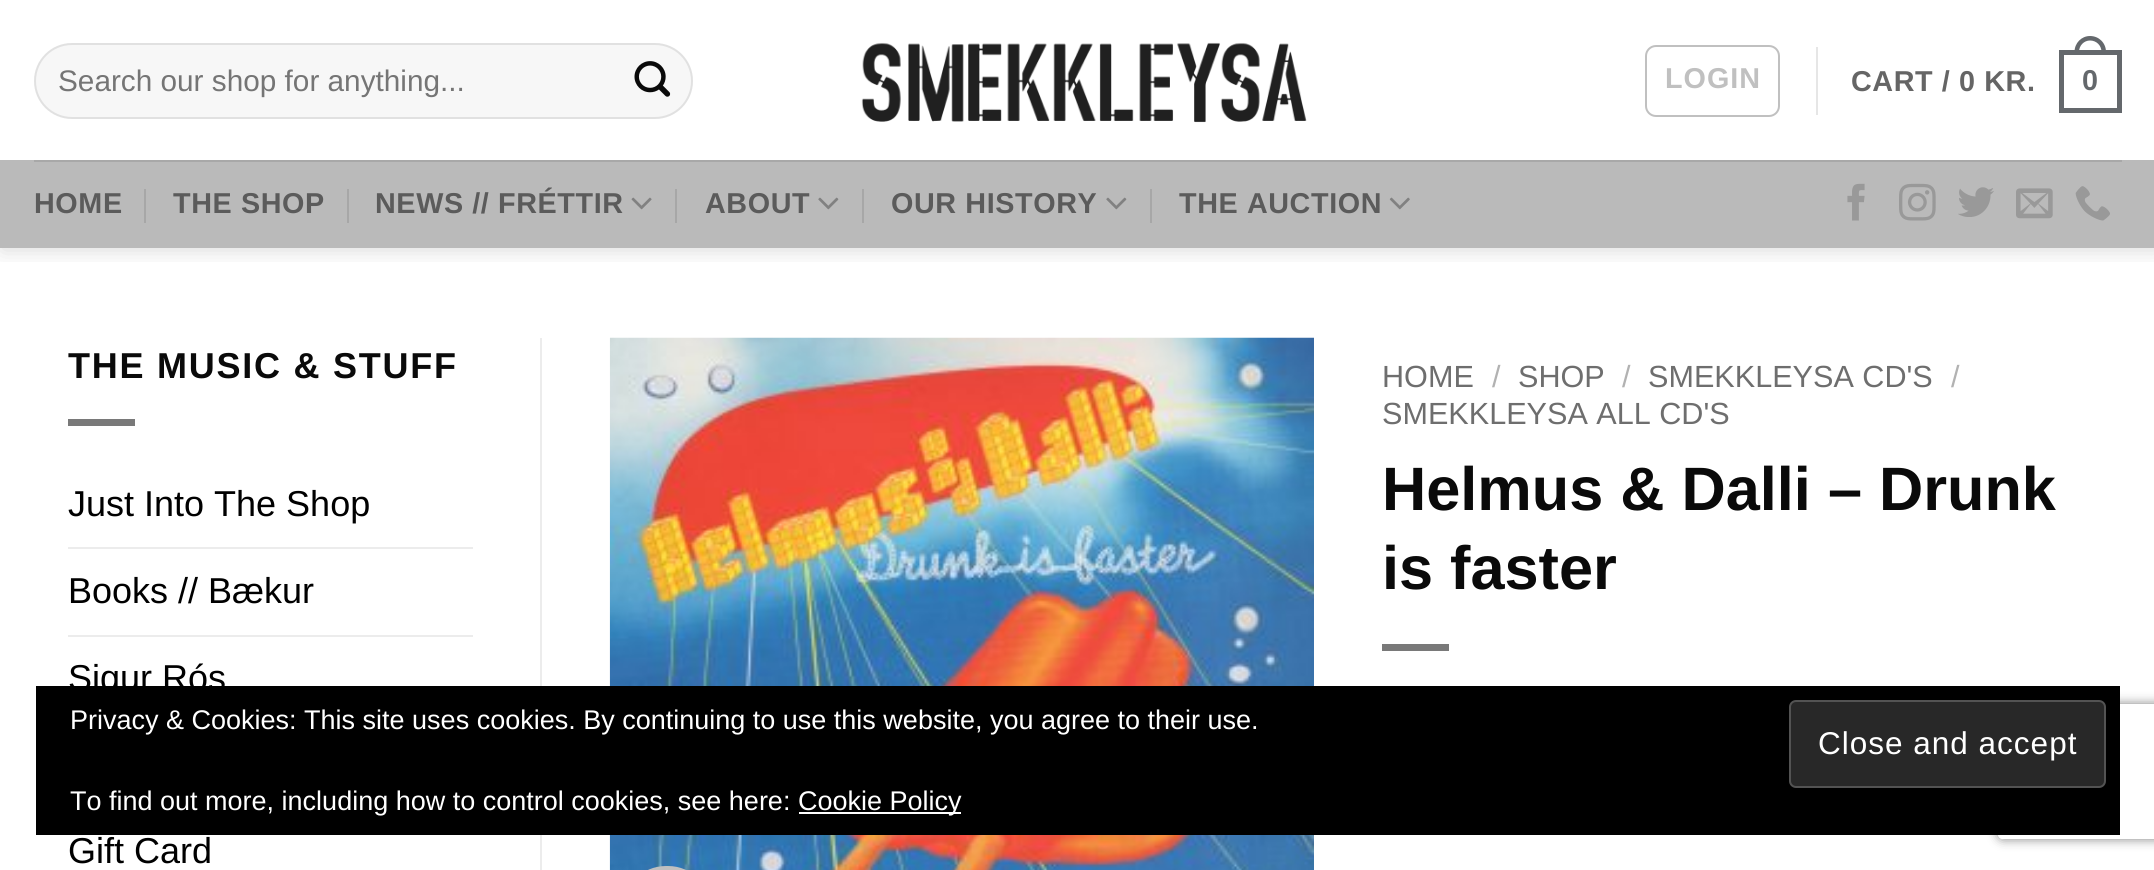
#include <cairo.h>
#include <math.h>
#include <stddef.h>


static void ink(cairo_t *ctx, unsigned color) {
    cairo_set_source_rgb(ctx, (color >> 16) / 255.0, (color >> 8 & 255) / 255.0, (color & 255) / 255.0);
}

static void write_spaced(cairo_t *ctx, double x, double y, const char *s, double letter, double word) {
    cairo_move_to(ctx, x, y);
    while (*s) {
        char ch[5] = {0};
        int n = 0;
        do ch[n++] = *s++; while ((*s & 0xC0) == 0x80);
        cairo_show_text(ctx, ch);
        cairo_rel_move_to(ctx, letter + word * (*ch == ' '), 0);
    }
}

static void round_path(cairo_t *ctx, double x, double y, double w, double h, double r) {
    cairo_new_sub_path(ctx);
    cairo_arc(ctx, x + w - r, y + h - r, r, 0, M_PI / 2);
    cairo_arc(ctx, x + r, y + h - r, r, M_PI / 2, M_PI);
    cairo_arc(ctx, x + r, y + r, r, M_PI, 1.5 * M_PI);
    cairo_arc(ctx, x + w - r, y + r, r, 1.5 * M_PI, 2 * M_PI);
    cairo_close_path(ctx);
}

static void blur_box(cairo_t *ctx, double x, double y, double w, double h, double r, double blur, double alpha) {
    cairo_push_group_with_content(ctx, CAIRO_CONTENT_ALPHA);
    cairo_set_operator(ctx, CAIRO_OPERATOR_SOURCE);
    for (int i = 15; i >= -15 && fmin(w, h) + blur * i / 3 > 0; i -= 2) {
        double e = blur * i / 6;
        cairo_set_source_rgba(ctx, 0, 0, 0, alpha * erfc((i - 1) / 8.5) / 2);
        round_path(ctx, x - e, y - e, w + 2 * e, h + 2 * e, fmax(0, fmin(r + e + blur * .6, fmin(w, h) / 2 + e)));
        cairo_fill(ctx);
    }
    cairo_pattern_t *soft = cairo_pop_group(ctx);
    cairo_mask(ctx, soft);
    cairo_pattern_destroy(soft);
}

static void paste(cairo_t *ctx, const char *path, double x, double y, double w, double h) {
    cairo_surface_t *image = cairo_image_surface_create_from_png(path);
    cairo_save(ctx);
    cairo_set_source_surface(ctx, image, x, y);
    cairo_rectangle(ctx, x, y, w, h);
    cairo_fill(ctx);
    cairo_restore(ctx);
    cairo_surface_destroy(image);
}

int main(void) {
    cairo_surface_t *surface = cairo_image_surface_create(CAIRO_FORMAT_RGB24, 2154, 870);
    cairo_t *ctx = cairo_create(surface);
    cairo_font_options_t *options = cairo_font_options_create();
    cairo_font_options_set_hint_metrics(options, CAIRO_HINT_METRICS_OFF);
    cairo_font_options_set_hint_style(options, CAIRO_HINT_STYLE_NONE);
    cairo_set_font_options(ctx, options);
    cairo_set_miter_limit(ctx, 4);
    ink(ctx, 0xFFFFFF);
    cairo_paint(ctx);
    cairo_save(ctx);
    cairo_rectangle(ctx, 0, 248, 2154, 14);
    cairo_clip(ctx);
    ink(ctx, 0x000000);
    blur_box(ctx, 2, 2, 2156, 248, 0, 11, 0.15);
    cairo_restore(ctx);
    ink(ctx, 0xF7F7F7);
    round_path(ctx, 34, 43, 659, 76, 38);
    cairo_fill(ctx);
    round_path(ctx, 35, 44, 657, 74, 37);
    cairo_set_source_rgba(ctx, 0, 0, 0, 0.09);
    cairo_stroke(ctx);
    cairo_select_font_face(ctx, "Liberation Sans", CAIRO_FONT_SLANT_NORMAL, CAIRO_FONT_WEIGHT_NORMAL);
    cairo_set_font_size(ctx, 29.75);
    ink(ctx, 0x757575);
    cairo_move_to(ctx, 58, 91);
    cairo_show_text(ctx, "Search our shop for anything...");
    paste(ctx, "media/1.png", 634, 61, 37, 36);
    paste(ctx, "media/2.png", 861, 42, 446, 81);
    round_path(ctx, 1646, 46, 133, 70, 10);
    ink(ctx, 0xC0C0C0);
    cairo_stroke(ctx);
    cairo_select_font_face(ctx, "Liberation Sans", CAIRO_FONT_SLANT_NORMAL, CAIRO_FONT_WEIGHT_BOLD);
    cairo_set_font_size(ctx, 28.75);
    write_spaced(ctx, 1665, 88, "LOGIN", 1, 0);
    ink(ctx, 0xE6E6E6);
    cairo_rectangle(ctx, 1816, 47, 2, 68);
    cairo_fill(ctx);
    ink(ctx, 0x656565);
    write_spaced(ctx, 1851, 91, "CART / 0 KR.", 0.6, 0);
    cairo_rectangle(ctx, 2061.5, 52.5, 58, 58);
    ink(ctx, 0x64686C);
    cairo_set_line_width(ctx, 5);
    cairo_stroke(ctx);
    cairo_set_fill_rule(ctx, CAIRO_FILL_RULE_EVEN_ODD);
    cairo_new_path(ctx);
    cairo_move_to(ctx, 2090, 36);
    cairo_curve_to(ctx, 2099, 36, 2106, 43, 2106, 52);
    cairo_line_to(ctx, 2106, 54);
    cairo_line_to(ctx, 2074.5, 54);
    cairo_line_to(ctx, 2074.5, 52);
    cairo_curve_to(ctx, 2074.5, 43, 2081.5, 36, 2090, 36);
    cairo_close_path(ctx);
    cairo_move_to(ctx, 2090, 40.5);
    cairo_curve_to(ctx, 2096.5, 40.5, 2101.5, 45.5, 2101.5, 52);
    cairo_line_to(ctx, 2101.5, 54);
    cairo_line_to(ctx, 2079, 54);
    cairo_line_to(ctx, 2079, 52);
    cairo_curve_to(ctx, 2079, 45.5, 2084, 40.5, 2090, 40.5);
    cairo_close_path(ctx);
    cairo_fill(ctx);
    write_spaced(ctx, 2082, 90, "0", 0.6, 0);
    ink(ctx, 0xBABABA);
    cairo_rectangle(ctx, 0, 160, 2154, 88);
    cairo_fill(ctx);
    ink(ctx, 0xA8A8A8);
    cairo_rectangle(ctx, 34, 160, 2088, 2);
    cairo_fill(ctx);
    ink(ctx, 0x5B5B5B);
    write_spaced(ctx, 34, 213, "HOME", 0.6, 0);
    ink(ctx, 0xA7A7A7);
    cairo_rectangle(ctx, 144, 189, 2, 34);
    cairo_fill(ctx);
    ink(ctx, 0x5B5B5B);
    write_spaced(ctx, 173, 213, "THE SHOP", 0.6, 0);
    ink(ctx, 0xA7A7A7);
    cairo_rectangle(ctx, 347, 189, 2, 34);
    cairo_fill(ctx);
    ink(ctx, 0x5B5B5B);
    write_spaced(ctx, 375, 213, "NEWS // FRÉTTIR", 0.6, 0);
    paste(ctx, "media/3.png", 631, 197, 21, 13);
    ink(ctx, 0xA7A7A7);
    cairo_rectangle(ctx, 675, 189, 2, 34);
    cairo_fill(ctx);
    ink(ctx, 0x5B5B5B);
    write_spaced(ctx, 705, 213, "ABOUT", 0.6, 0);
    paste(ctx, "media/4.png", 818, 197, 21, 13);
    ink(ctx, 0xA7A7A7);
    cairo_rectangle(ctx, 862, 189, 2, 34);
    cairo_fill(ctx);
    ink(ctx, 0x5B5B5B);
    write_spaced(ctx, 891, 213, "OUR HISTORY", 0.6, 0);
    paste(ctx, "media/4.png", 1106, 197, 21, 13);
    ink(ctx, 0xA7A7A7);
    cairo_rectangle(ctx, 1150, 189, 2, 34);
    cairo_fill(ctx);
    ink(ctx, 0x5B5B5B);
    write_spaced(ctx, 1179, 213, "THE AUCTION", 0.6, 0);
    paste(ctx, "media/5.png", 1389, 197, 21, 13);
    paste(ctx, "media/6.png", 1847, 183, 18, 38);
    paste(ctx, "media/7.png", 1899, 183, 37, 38);
    paste(ctx, "media/8.png", 1958, 187, 36, 30);
    paste(ctx, "media/9.png", 2016, 188, 37, 31);
    paste(ctx, "media/10.png", 2075, 186, 35, 35);
    cairo_set_font_size(ctx, 36);
    ink(ctx, 0x0A0A0A);
    write_spaced(ctx, 68, 378, "THE MUSIC & STUFF", 1.75, 0);
    ink(ctx, 0x797979);
    cairo_rectangle(ctx, 68, 419, 67, 7);
    cairo_fill(ctx);
    cairo_select_font_face(ctx, "Liberation Sans", CAIRO_FONT_SLANT_NORMAL, CAIRO_FONT_WEIGHT_NORMAL);
    ink(ctx, 0x000000);
    cairo_move_to(ctx, 68, 516);
    cairo_show_text(ctx, "Just Into The Shop");
    ink(ctx, 0xECECEC);
    cairo_rectangle(ctx, 68, 547, 405, 2);
    cairo_fill(ctx);
    ink(ctx, 0x000000);
    cairo_move_to(ctx, 68, 603);
    cairo_show_text(ctx, "Books // Bækur");
    ink(ctx, 0xECECEC);
    cairo_rectangle(ctx, 68, 635, 405, 2);
    cairo_fill(ctx);
    ink(ctx, 0x000000);
    cairo_move_to(ctx, 68, 690);
    cairo_show_text(ctx, "Sigur Rós");
    cairo_move_to(ctx, 68, 863);
    cairo_show_text(ctx, "Gift Card");
    ink(ctx, 0xECECEC);
    cairo_rectangle(ctx, 540, 338, 2, 532);
    cairo_fill(ctx);
    paste(ctx, "media/11.png", 609, 337, 705, 533);
    round_path(ctx, 625.5, 868.5, 83, 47, 40.5);
    ink(ctx, 0xC0C0C0);
    cairo_stroke(ctx);
    cairo_set_font_size(ctx, 30.6);
    ink(ctx, 0x6E6E6E);
    cairo_move_to(ctx, 1382, 387);
    cairo_show_text(ctx, "HOME");
    ink(ctx, 0xB2B2B2);
    cairo_move_to(ctx, 1492, 387);
    cairo_show_text(ctx, "/");
    ink(ctx, 0x6E6E6E);
    cairo_move_to(ctx, 1518, 387);
    cairo_show_text(ctx, "SHOP");
    ink(ctx, 0xB2B2B2);
    cairo_move_to(ctx, 1622, 387);
    cairo_show_text(ctx, "/");
    ink(ctx, 0x6E6E6E);
    cairo_move_to(ctx, 1648, 387);
    cairo_show_text(ctx, "SMEKKLEYSA CD'S");
    ink(ctx, 0xB2B2B2);
    cairo_move_to(ctx, 1951, 387);
    cairo_show_text(ctx, "/");
    ink(ctx, 0x6E6E6E);
    cairo_move_to(ctx, 1382, 424);
    cairo_show_text(ctx, "SMEKKLEYSA ALL CD'S");
    cairo_select_font_face(ctx, "Liberation Sans", CAIRO_FONT_SLANT_NORMAL, CAIRO_FONT_WEIGHT_BOLD);
    cairo_set_font_size(ctx, 61.25);
    ink(ctx, 0x0A0A0A);
    cairo_move_to(ctx, 1382, 510);
    cairo_show_text(ctx, "Helmus & Dalli – Drunk");
    cairo_move_to(ctx, 1382, 589);
    cairo_show_text(ctx, "is faster");
    ink(ctx, 0x797979);
    cairo_rectangle(ctx, 1382, 644, 67, 7);
    cairo_fill(ctx);
    cairo_save(ctx);
    cairo_new_path(ctx);
    cairo_move_to(ctx, 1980, 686);
    cairo_line_to(ctx, 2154, 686);
    cairo_line_to(ctx, 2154, 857);
    cairo_line_to(ctx, 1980, 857);
    cairo_close_path(ctx);
    cairo_move_to(ctx, 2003, 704);
    cairo_line_to(ctx, 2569, 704);
    cairo_curve_to(ctx, 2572, 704, 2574, 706, 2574, 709);
    cairo_line_to(ctx, 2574, 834);
    cairo_curve_to(ctx, 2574, 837, 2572, 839, 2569, 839);
    cairo_line_to(ctx, 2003, 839);
    cairo_curve_to(ctx, 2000, 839, 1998, 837, 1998, 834);
    cairo_line_to(ctx, 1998, 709);
    cairo_curve_to(ctx, 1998, 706, 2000, 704, 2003, 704);
    cairo_close_path(ctx);
    cairo_clip(ctx);
    ink(ctx, 0x808080);
    blur_box(ctx, 1998, 704, 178, 135, 5, 5.5, 1);
    cairo_restore(ctx);
    ink(ctx, 0x000000);
    cairo_rectangle(ctx, 36, 686, 2084, 149);
    cairo_fill(ctx);
    cairo_select_font_face(ctx, "Liberation Sans", CAIRO_FONT_SLANT_NORMAL, CAIRO_FONT_WEIGHT_NORMAL);
    cairo_set_font_size(ctx, 27);
    ink(ctx, 0xFFFFFF);
    cairo_move_to(ctx, 70, 729);
    cairo_show_text(ctx, "Privacy & Cookies: This site uses cookies. By continuing to use this website, you agree to their use.");
    ink(ctx, 0x282828);
    round_path(ctx, 1790, 701, 315, 86, 6);
    cairo_fill_preserve(ctx);
    ink(ctx, 0x535353);
    cairo_set_line_width(ctx, 2);
    cairo_stroke(ctx);
    cairo_set_font_size(ctx, 31.5);
    ink(ctx, 0xFFFFFF);
    write_spaced(ctx, 1818, 754, "Close and accept", 1, 0);
    cairo_set_font_size(ctx, 27);
    cairo_move_to(ctx, 70, 810);
    cairo_show_text(ctx, "To find out more, including how to control cookies, see here:");
    cairo_rectangle(ctx, 799, 812, 162, 2);
    cairo_fill(ctx);
    cairo_move_to(ctx, 798, 810);
    cairo_show_text(ctx, "Cookie Policy");
    cairo_surface_write_to_png(surface, "image.png");
    cairo_font_options_destroy(options);
    cairo_destroy(ctx);
    cairo_surface_destroy(surface);
    return 0;
}
